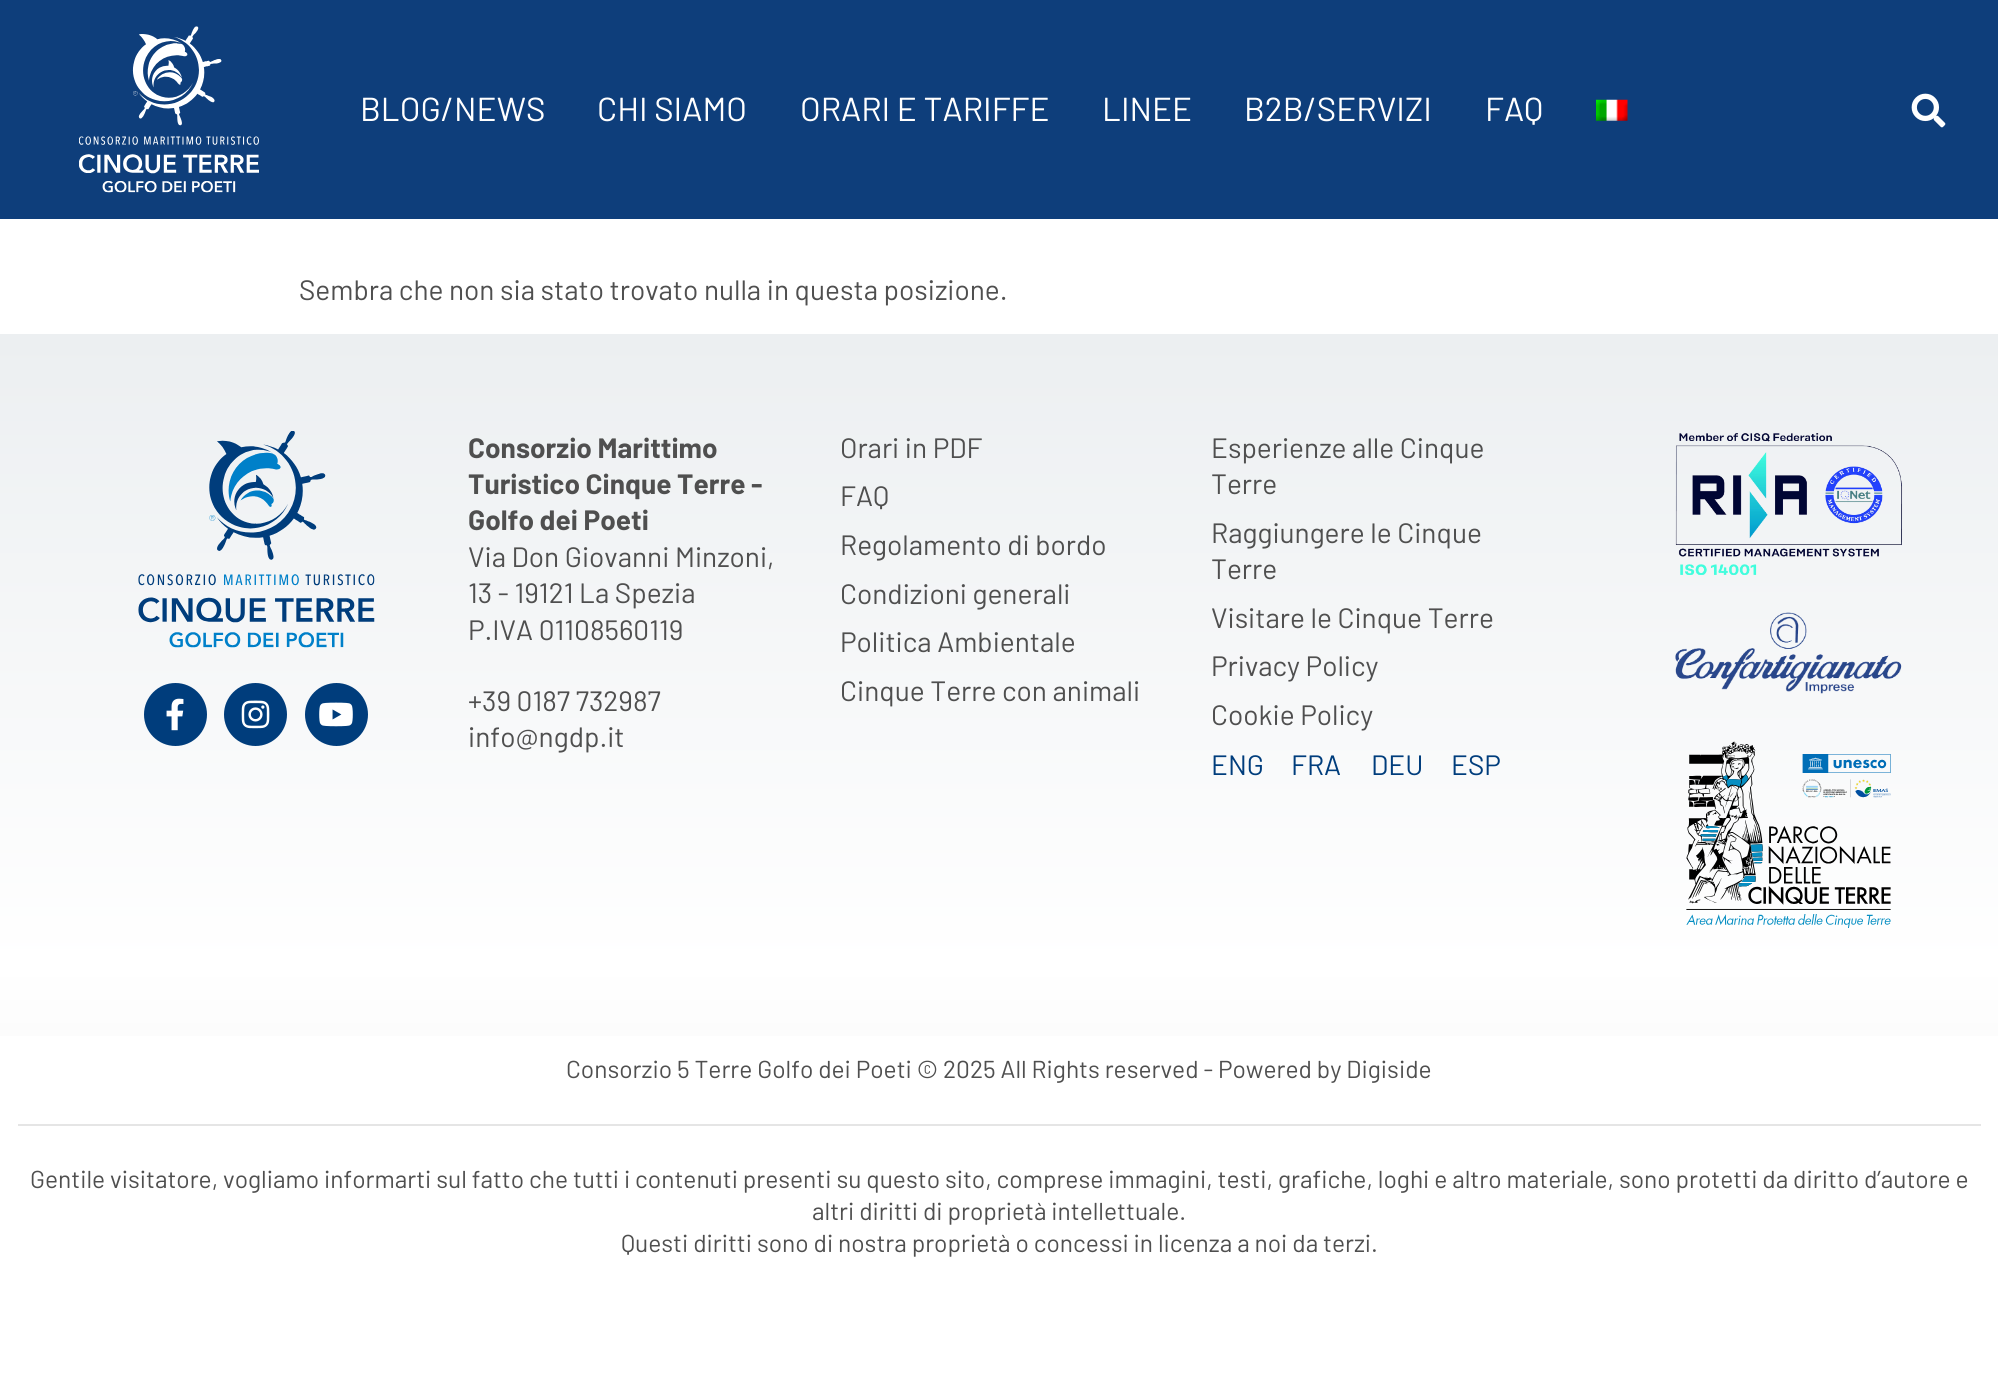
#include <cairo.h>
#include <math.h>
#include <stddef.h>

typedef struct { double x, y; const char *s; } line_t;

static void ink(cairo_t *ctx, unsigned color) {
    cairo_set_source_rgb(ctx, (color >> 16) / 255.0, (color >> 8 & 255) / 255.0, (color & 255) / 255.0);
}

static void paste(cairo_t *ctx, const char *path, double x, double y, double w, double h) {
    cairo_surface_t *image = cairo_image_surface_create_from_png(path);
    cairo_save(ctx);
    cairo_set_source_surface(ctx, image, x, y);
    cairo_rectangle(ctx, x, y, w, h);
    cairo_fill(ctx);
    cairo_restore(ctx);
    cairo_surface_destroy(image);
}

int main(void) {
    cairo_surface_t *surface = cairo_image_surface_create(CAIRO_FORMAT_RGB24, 1998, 1390);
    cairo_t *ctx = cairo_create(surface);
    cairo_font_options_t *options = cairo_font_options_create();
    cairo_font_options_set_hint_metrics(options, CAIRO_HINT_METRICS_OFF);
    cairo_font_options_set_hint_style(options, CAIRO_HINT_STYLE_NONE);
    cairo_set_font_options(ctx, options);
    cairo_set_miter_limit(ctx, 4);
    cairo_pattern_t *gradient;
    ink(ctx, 0xFFFFFF);
    cairo_paint(ctx);
    ink(ctx, 0x0E3E7B);
    cairo_rectangle(ctx, 0, 0, 1998, 219);
    cairo_fill(ctx);
    paste(ctx, "media/1.png", 79, 26, 180, 167);
    cairo_select_font_face(ctx, "Barlow", CAIRO_FONT_SLANT_NORMAL, CAIRO_FONT_WEIGHT_NORMAL);
    cairo_set_font_size(ctx, 33.25);
    ink(ctx, 0xFFFFFF);
    {
        static const line_t items[] = {
            {360, 121, "BLOG/NEWS"},
            {597, 121, "CHI SIAMO"},
            {800, 121, "ORARI E TARIFFE"},
            {1102, 121, "LINEE"},
            {1244, 121, "B2B/SERVIZI"},
            {1485, 121, "FAQ"},
        };
        for (size_t i = 0; i < sizeof items / sizeof *items; i++) {
            cairo_move_to(ctx, items[i].x, items[i].y);
            cairo_show_text(ctx, items[i].s);
        }
    }
    paste(ctx, "media/2.png", 1596, 99, 32, 22);
    paste(ctx, "media/3.png", 1911, 93, 35, 35);
    cairo_set_font_size(ctx, 28);
    ink(ctx, 0x4F4F4F);
    cairo_move_to(ctx, 299, 300);
    cairo_show_text(ctx, "Sembra che non sia stato trovato nulla in questa posizione.");
    gradient = cairo_pattern_create_linear(999, 334, 999, 1036);
    cairo_pattern_add_color_stop_rgba(gradient, 0, 0.925, 0.937, 0.945, 1);
    cairo_pattern_add_color_stop_rgba(gradient, 0.9, 1, 1, 1, 1);
    cairo_pattern_add_color_stop_rgba(gradient, 1, 0.988, 0.988, 0.988, 1);
    cairo_set_source(ctx, gradient);
    cairo_pattern_destroy(gradient);
    cairo_rectangle(ctx, 0, 334, 1998, 702);
    cairo_fill(ctx);
    paste(ctx, "media/4.png", 138, 431, 237, 217);
    ink(ctx, 0x003D7C);
    cairo_arc(ctx, 175.5, 714.5, 31.5, 0, 2 * M_PI);
    cairo_fill(ctx);
    paste(ctx, "media/5.png", 166, 698, 18, 33);
    cairo_arc(ctx, 255.5, 714.5, 31.5, 0, 2 * M_PI);
    cairo_fill(ctx);
    paste(ctx, "media/6.png", 241, 700, 29, 29);
    cairo_arc(ctx, 336.5, 714.5, 31.5, 0, 2 * M_PI);
    cairo_fill(ctx);
    paste(ctx, "media/7.png", 319, 702, 34, 25);
    cairo_select_font_face(ctx, "Barlow", CAIRO_FONT_SLANT_NORMAL, CAIRO_FONT_WEIGHT_BOLD);
    ink(ctx, 0x4F4F4F);
    {
        static const line_t items[] = {
            {468, 458, "Consorzio Marittimo"},
            {468, 494, "Turistico Cinque Terre -"},
            {468, 530, "Golfo dei Poeti"},
        };
        for (size_t i = 0; i < sizeof items / sizeof *items; i++) {
            cairo_move_to(ctx, items[i].x, items[i].y);
            cairo_show_text(ctx, items[i].s);
        }
    }
    cairo_select_font_face(ctx, "Barlow", CAIRO_FONT_SLANT_NORMAL, CAIRO_FONT_WEIGHT_NORMAL);
    {
        static const line_t items[] = {
            {468, 567, "Via Don Giovanni Minzoni,"},
            {468, 603, "13 - 19121 La Spezia"},
            {468, 640, "P.IVA 01108560119"},
            {468, 711, "+39 0187 732987"},
            {468, 747, "info@ngdp.it"},
            {840, 458, "Orari in PDF"},
            {840, 506, "FAQ"},
            {840, 555, "Regolamento di bordo"},
            {840, 604, "Condizioni generali"},
            {840, 652, "Politica Ambientale"},
            {840, 701, "Cinque Terre con animali"},
            {1211, 458, "Esperienze alle Cinque"},
            {1211, 494, "Terre"},
            {1211, 543, "Raggiungere le Cinque"},
            {1211, 579, "Terre"},
            {1211, 628, "Visitare le Cinque Terre"},
            {1211, 676, "Privacy Policy"},
            {1211, 725, "Cookie Policy"},
        };
        for (size_t i = 0; i < sizeof items / sizeof *items; i++) {
            cairo_move_to(ctx, items[i].x, items[i].y);
            cairo_show_text(ctx, items[i].s);
        }
    }
    ink(ctx, 0x003D7C);
    {
        static const line_t items[] = {
            {1211, 775, "ENG"},
            {1291, 775, "FRA"},
            {1371, 775, "DEU"},
            {1451, 775, "ESP"},
        };
        for (size_t i = 0; i < sizeof items / sizeof *items; i++) {
            cairo_move_to(ctx, items[i].x, items[i].y);
            cairo_show_text(ctx, items[i].s);
        }
    }
    paste(ctx, "media/8.png", 1675, 433, 228, 142);
    paste(ctx, "media/9.png", 1675, 612, 227, 82);
    paste(ctx, "media/10.png", 1686, 741, 205, 187);
    cairo_set_font_size(ctx, 24.5);
    ink(ctx, 0x4F4F4F);
    cairo_move_to(ctx, 566, 1078);
    cairo_show_text(ctx, "Consorzio 5 Terre Golfo dei Poeti © 2025 All Rights reserved - Powered by Digiside");
    ink(ctx, 0xE5E5E5);
    cairo_rectangle(ctx, 18, 1124, 1963, 2);
    cairo_fill(ctx);
    ink(ctx, 0x4F4F4F);
    {
        static const line_t items[] = {
            {30, 1188, "Gentile visitatore, vogliamo informarti sul fatto che tutti i contenuti presenti su questo sito, comprese immagini, testi, grafiche, loghi e altro materiale, sono protetti da diritto d’autore e"},
            {812, 1220, "altri diritti di proprietà intellettuale."},
            {621, 1252, "Questi diritti sono di nostra proprietà o concessi in licenza a noi da terzi."},
        };
        for (size_t i = 0; i < sizeof items / sizeof *items; i++) {
            cairo_move_to(ctx, items[i].x, items[i].y);
            cairo_show_text(ctx, items[i].s);
        }
    }
    cairo_surface_write_to_png(surface, "image.png");
    cairo_font_options_destroy(options);
    cairo_destroy(ctx);
    cairo_surface_destroy(surface);
    return 0;
}
